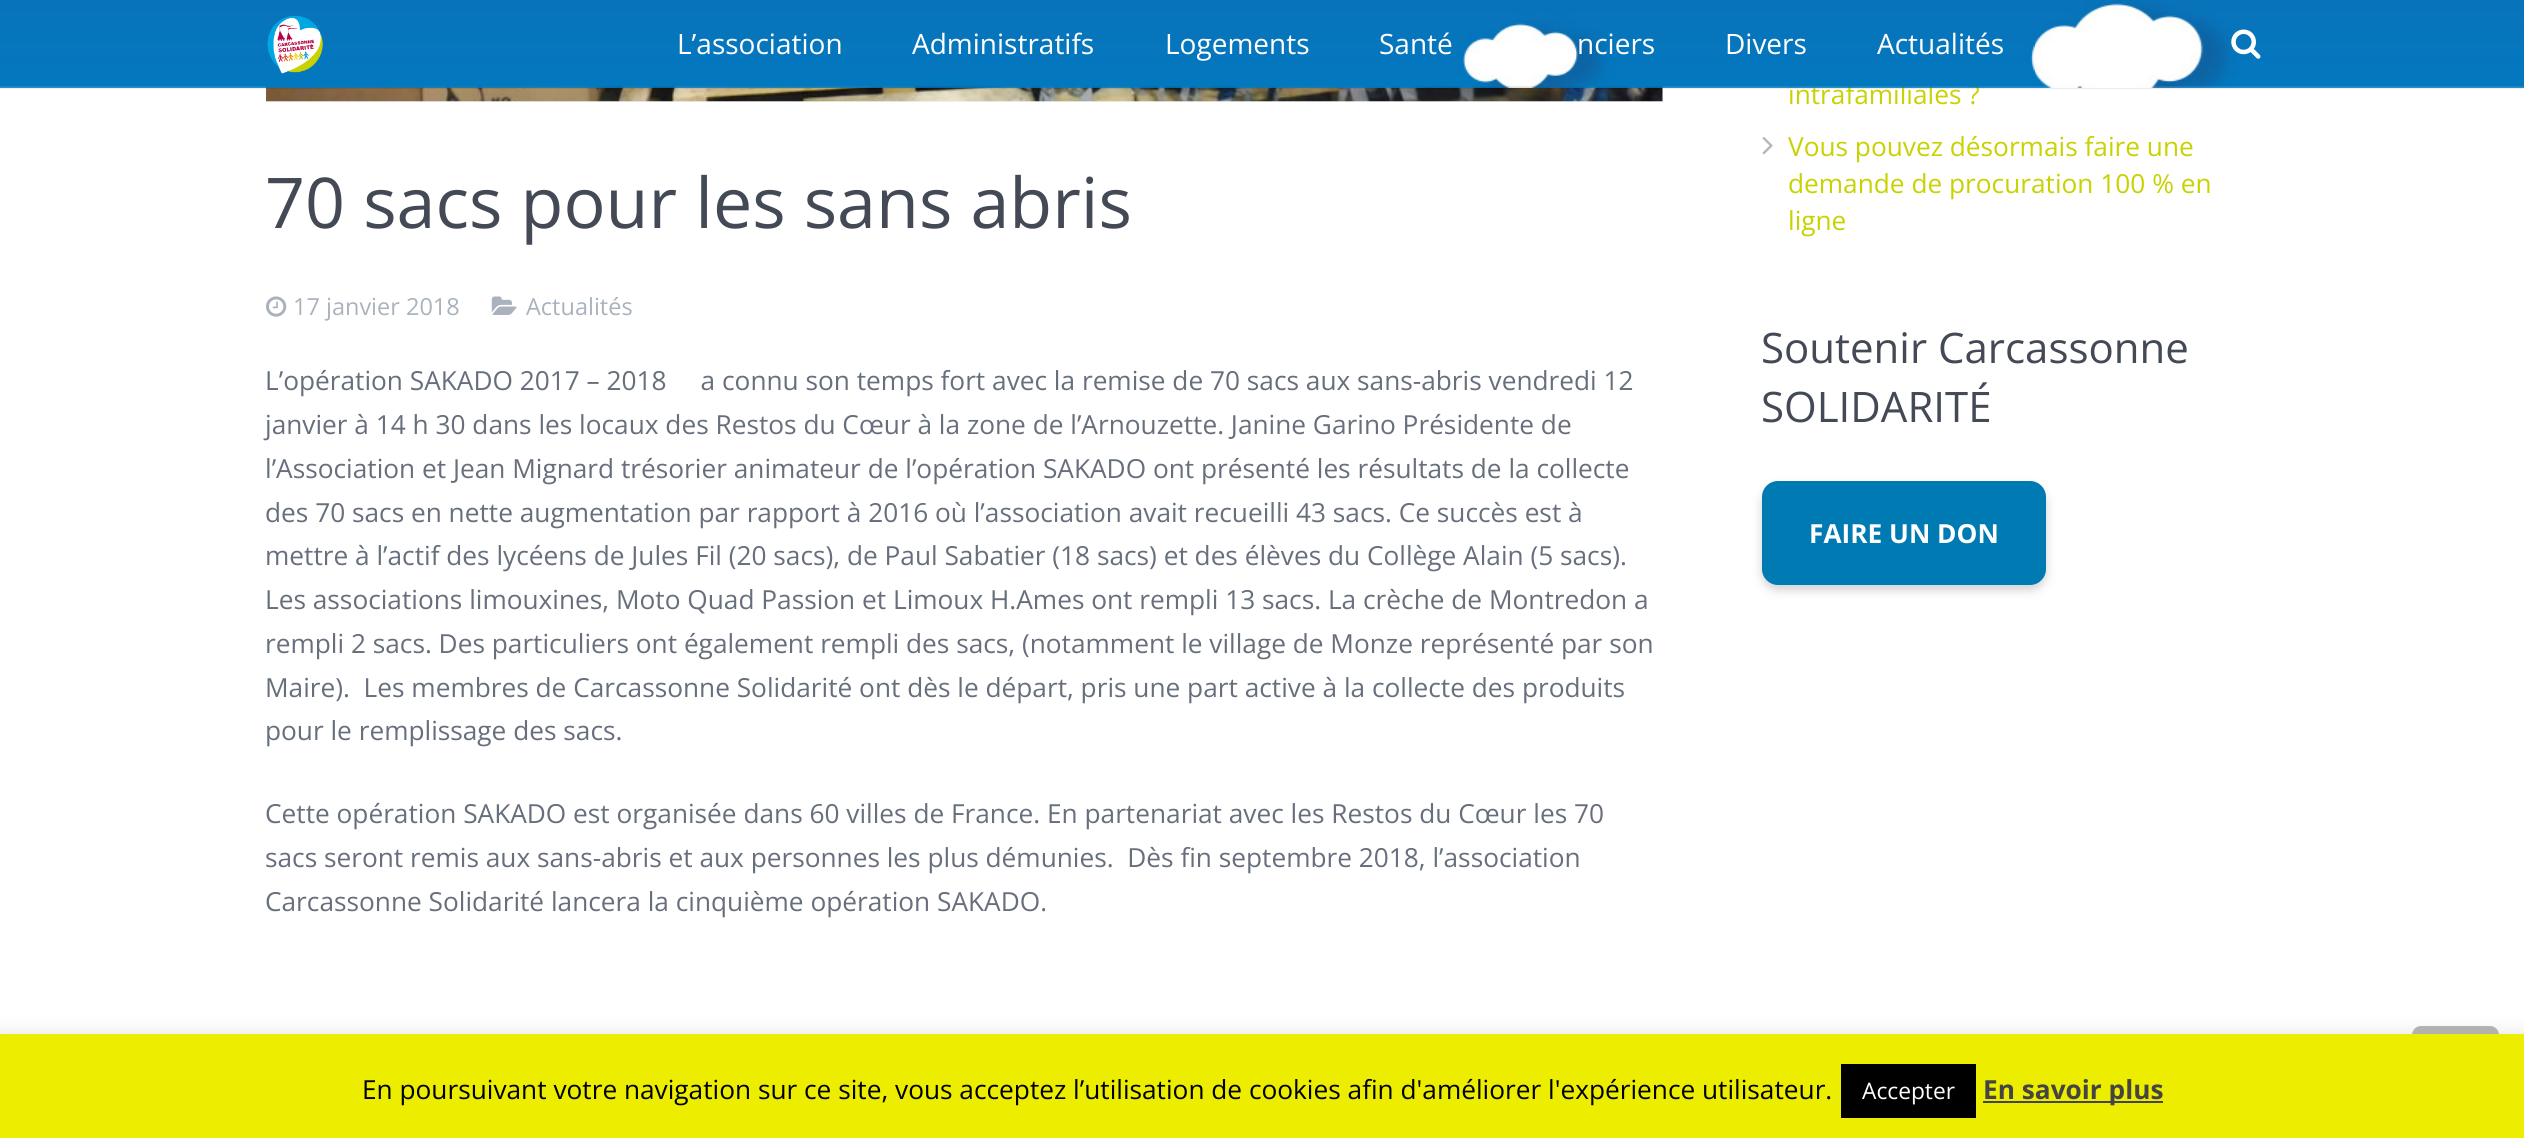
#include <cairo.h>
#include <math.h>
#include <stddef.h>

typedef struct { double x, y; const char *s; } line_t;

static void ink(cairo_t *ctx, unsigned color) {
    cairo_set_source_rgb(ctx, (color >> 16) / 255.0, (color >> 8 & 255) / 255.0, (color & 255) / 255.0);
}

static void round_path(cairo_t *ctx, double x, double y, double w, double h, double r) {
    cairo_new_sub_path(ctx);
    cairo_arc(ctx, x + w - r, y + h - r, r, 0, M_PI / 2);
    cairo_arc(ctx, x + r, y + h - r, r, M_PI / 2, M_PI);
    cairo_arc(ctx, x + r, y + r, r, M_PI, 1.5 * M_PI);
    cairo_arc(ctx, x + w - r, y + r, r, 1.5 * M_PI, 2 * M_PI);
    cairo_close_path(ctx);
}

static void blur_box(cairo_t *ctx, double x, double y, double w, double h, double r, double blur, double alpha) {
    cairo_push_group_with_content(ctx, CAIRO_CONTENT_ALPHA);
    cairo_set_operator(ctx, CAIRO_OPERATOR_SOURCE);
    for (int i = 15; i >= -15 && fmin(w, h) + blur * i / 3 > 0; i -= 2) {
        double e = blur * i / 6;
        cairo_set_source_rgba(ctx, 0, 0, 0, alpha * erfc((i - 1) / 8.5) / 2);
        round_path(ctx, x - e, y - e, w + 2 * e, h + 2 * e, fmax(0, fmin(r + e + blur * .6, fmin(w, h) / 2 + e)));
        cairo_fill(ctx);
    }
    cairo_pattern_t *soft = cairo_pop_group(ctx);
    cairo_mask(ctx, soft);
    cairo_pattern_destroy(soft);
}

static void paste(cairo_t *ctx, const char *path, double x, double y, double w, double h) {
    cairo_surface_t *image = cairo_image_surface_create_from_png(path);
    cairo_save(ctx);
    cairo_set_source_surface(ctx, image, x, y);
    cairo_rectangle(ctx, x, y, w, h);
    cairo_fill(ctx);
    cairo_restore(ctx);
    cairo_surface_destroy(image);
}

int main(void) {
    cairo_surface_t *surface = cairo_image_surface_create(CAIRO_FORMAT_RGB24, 2524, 1138);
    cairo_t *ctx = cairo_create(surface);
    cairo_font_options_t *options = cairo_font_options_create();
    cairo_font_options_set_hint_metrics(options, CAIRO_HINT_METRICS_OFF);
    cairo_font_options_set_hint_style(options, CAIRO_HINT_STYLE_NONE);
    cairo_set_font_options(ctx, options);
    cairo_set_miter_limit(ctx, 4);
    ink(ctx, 0xFFFFFF);
    cairo_paint(ctx);
    ink(ctx, 0xF2F3F5);
    cairo_rectangle(ctx, 266, 86, 1397, 16);
    cairo_fill(ctx);
    paste(ctx, "media/4.png", 266, 86, 1397, 16);
    cairo_set_source_rgba(ctx, 0, 0, 0, 0.08);
    cairo_rectangle(ctx, 0, 88, 2524, 1);
    cairo_fill(ctx);
    cairo_select_font_face(ctx, "Open Sans", CAIRO_FONT_SLANT_NORMAL, CAIRO_FONT_WEIGHT_NORMAL);
    cairo_set_font_size(ctx, 26.25);
    ink(ctx, 0xC8D200);
    cairo_move_to(ctx, 1788, 104);
    cairo_show_text(ctx, "intrafamiliales ?");
    paste(ctx, "media/1.png", 0, 0, 2524, 88);
    paste(ctx, "media/2.png", 267, 16, 56, 58);
    cairo_set_font_size(ctx, 28);
    ink(ctx, 0xFFFFFF);
    {
        static const line_t items[] = {
            {677, 54, "L’association"},
            {912, 54, "Administratifs"},
            {1165, 54, "Logements"},
            {1379, 54, "Santé"},
            {1577, 54, "nciers"},
            {1725, 54, "Divers"},
            {1877, 54, "Actualités"},
        };
        for (size_t i = 0; i < sizeof items / sizeof *items; i++) {
            cairo_move_to(ctx, items[i].x, items[i].y);
            cairo_show_text(ctx, items[i].s);
        }
    }
    paste(ctx, "media/3.png", 2231, 29, 30, 30);
    cairo_set_font_size(ctx, 70);
    ink(ctx, 0x434955);
    cairo_move_to(ctx, 265, 228);
    cairo_show_text(ctx, "70 sacs pour les sans abris");
    paste(ctx, "media/5.png", 266, 296, 21, 21);
    cairo_set_font_size(ctx, 23.5);
    ink(ctx, 0xAAB2BD);
    cairo_move_to(ctx, 293, 315);
    cairo_show_text(ctx, "17 janvier 2018");
    paste(ctx, "media/6.png", 491, 296, 26, 19);
    cairo_move_to(ctx, 526, 315);
    cairo_show_text(ctx, "Actualités");
    cairo_set_font_size(ctx, 26.25);
    ink(ctx, 0x676F7C);
    {
        static const line_t items[] = {
            {265, 390, "L’opération SAKADO 2017 – 2018     a connu son temps fort avec la remise de 70 sacs aux sans-abris vendredi 12"},
            {265, 434, "janvier à 14 h 30 dans les locaux des Restos du Cœur à la zone de l’Arnouzette. Janine Garino Présidente de"},
            {265, 478, "l’Association et Jean Mignard trésorier animateur de l’opération SAKADO ont présenté les résultats de la collecte"},
            {265, 522, "des 70 sacs en nette augmentation par rapport à 2016 où l’association avait recueilli 43 sacs. Ce succès est à"},
            {265, 565, "mettre à l’actif des lycéens de Jules Fil (20 sacs), de Paul Sabatier (18 sacs) et des élèves du Collège Alain (5 sacs)."},
            {265, 609, "Les associations limouxines, Moto Quad Passion et Limoux H.Ames ont rempli 13 sacs. La crèche de Montredon a"},
            {265, 653, "rempli 2 sacs. Des particuliers ont également rempli des sacs, (notamment le village de Monze représenté par son"},
            {265, 697, "Maire).  Les membres de Carcassonne Solidarité ont dès le départ, pris une part active à la collecte des produits"},
            {265, 740, "pour le remplissage des sacs."},
            {265, 823, "Cette opération SAKADO est organisée dans 60 villes de France. En partenariat avec les Restos du Cœur les 70"},
            {265, 867, "sacs seront remis aux sans-abris et aux personnes les plus démunies.  Dès fin septembre 2018, l’association"},
            {265, 911, "Carcassonne Solidarité lancera la cinquième opération SAKADO."},
        };
        for (size_t i = 0; i < sizeof items / sizeof *items; i++) {
            cairo_move_to(ctx, items[i].x, items[i].y);
            cairo_show_text(ctx, items[i].s);
        }
    }
    paste(ctx, "media/7.png", 1762, 137, 11, 18);
    ink(ctx, 0xC8D200);
    {
        static const line_t items[] = {
            {1788, 156, "Vous pouvez désormais faire une"},
            {1788, 193, "demande de procuration 100 % en"},
            {1788, 230, "ligne"},
        };
        for (size_t i = 0; i < sizeof items / sizeof *items; i++) {
            cairo_move_to(ctx, items[i].x, items[i].y);
            cairo_show_text(ctx, items[i].s);
        }
    }
    cairo_set_font_size(ctx, 42);
    ink(ctx, 0x434955);
    cairo_move_to(ctx, 1761, 363);
    cairo_show_text(ctx, "Soutenir Carcassonne");
    cairo_move_to(ctx, 1761, 422);
    cairo_show_text(ctx, "SOLIDARITÉ");
    ink(ctx, 0x000000);
    blur_box(ctx, 1762, 487, 284, 103, 16, 5, 0.18);
    ink(ctx, 0x007AB2);
    round_path(ctx, 1762, 481, 284, 104, 16);
    cairo_fill(ctx);
    cairo_select_font_face(ctx, "Open Sans", CAIRO_FONT_SLANT_NORMAL, CAIRO_FONT_WEIGHT_BOLD);
    cairo_set_font_size(ctx, 26.25);
    ink(ctx, 0xFFFFFF);
    cairo_move_to(ctx, 1809, 543);
    cairo_show_text(ctx, "FAIRE UN DON");
    ink(ctx, 0xB3B3B3);
    round_path(ctx, 2412, 1026, 87, 87, 9);
    cairo_fill(ctx);
    ink(ctx, 0xACABAB);
    blur_box(ctx, 0, 1033, 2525, 105, 0, 9, 0.3);
    ink(ctx, 0xEDED00);
    cairo_rectangle(ctx, 0, 1034, 2524, 104);
    cairo_fill(ctx);
    cairo_select_font_face(ctx, "Open Sans", CAIRO_FONT_SLANT_NORMAL, CAIRO_FONT_WEIGHT_NORMAL);
    ink(ctx, 0x000000);
    cairo_move_to(ctx, 362, 1099);
    cairo_show_text(ctx, "En poursuivant votre navigation sur ce site, vous acceptez l’utilisation de cookies afin d'améliorer l'expérience utilisateur.");
    cairo_rectangle(ctx, 1841, 1064, 135, 54);
    cairo_fill(ctx);
    cairo_set_font_size(ctx, 22.75);
    ink(ctx, 0xFFFFFF);
    cairo_move_to(ctx, 1862, 1099);
    cairo_show_text(ctx, "Accepter");
    ink(ctx, 0x444444);
    cairo_rectangle(ctx, 1983, 1101, 180, 2);
    cairo_fill(ctx);
    cairo_select_font_face(ctx, "Open Sans", CAIRO_FONT_SLANT_NORMAL, CAIRO_FONT_WEIGHT_BOLD);
    cairo_set_font_size(ctx, 26.25);
    cairo_move_to(ctx, 1983, 1099);
    cairo_show_text(ctx, "En savoir plus");
    cairo_surface_write_to_png(surface, "image.png");
    cairo_font_options_destroy(options);
    cairo_destroy(ctx);
    cairo_surface_destroy(surface);
    return 0;
}
